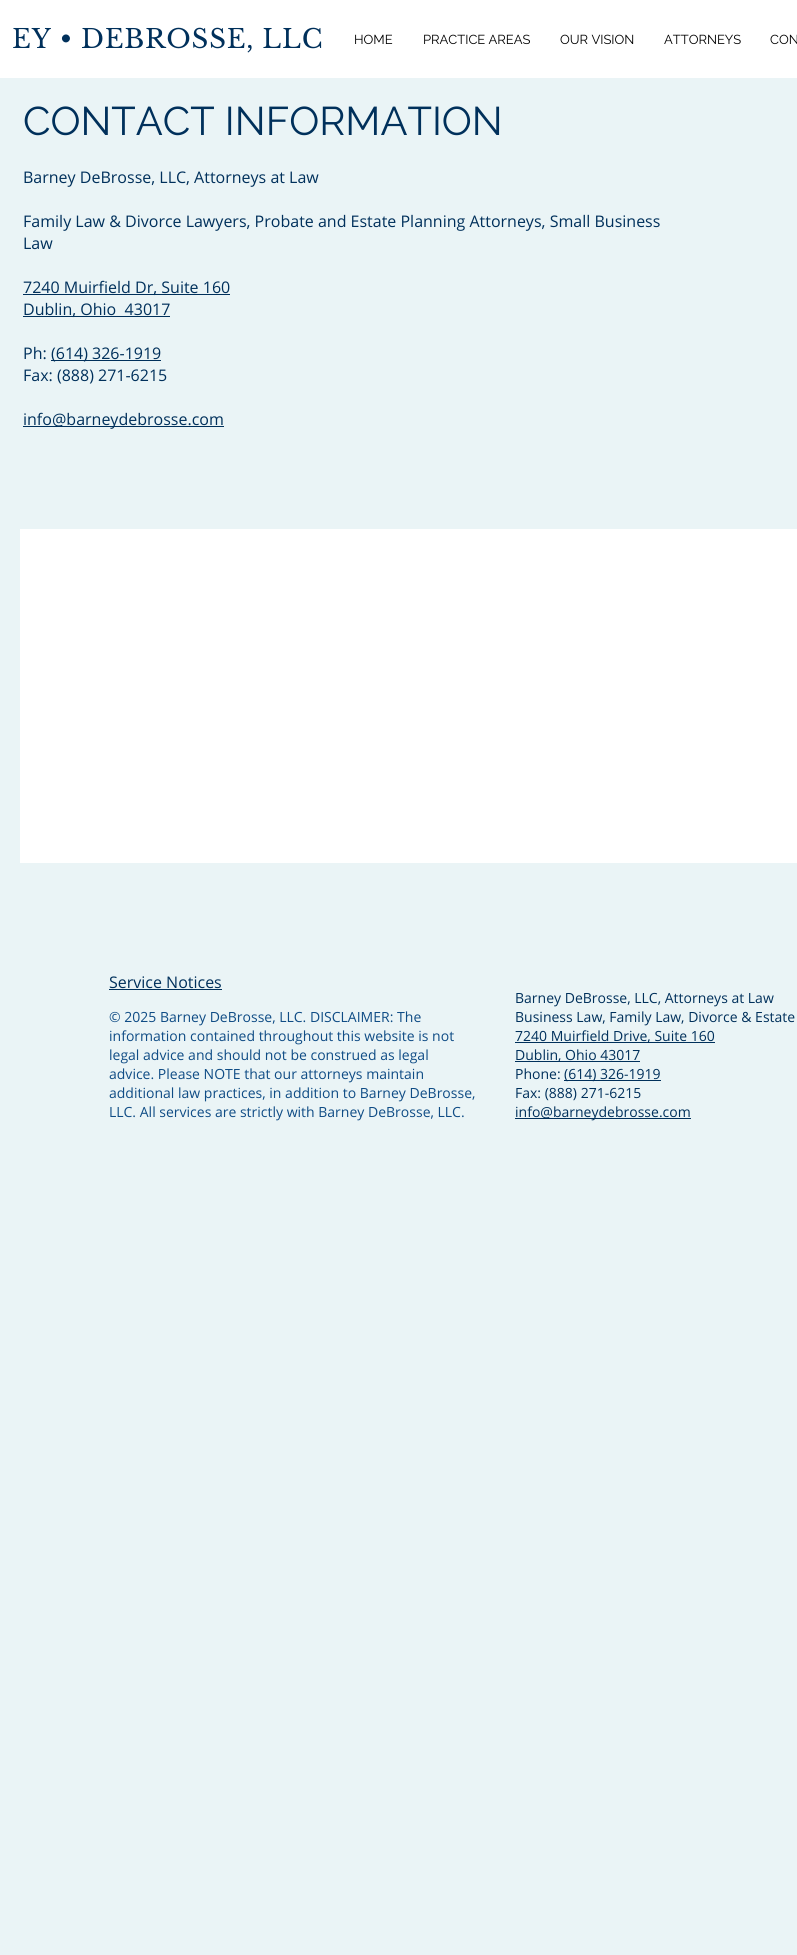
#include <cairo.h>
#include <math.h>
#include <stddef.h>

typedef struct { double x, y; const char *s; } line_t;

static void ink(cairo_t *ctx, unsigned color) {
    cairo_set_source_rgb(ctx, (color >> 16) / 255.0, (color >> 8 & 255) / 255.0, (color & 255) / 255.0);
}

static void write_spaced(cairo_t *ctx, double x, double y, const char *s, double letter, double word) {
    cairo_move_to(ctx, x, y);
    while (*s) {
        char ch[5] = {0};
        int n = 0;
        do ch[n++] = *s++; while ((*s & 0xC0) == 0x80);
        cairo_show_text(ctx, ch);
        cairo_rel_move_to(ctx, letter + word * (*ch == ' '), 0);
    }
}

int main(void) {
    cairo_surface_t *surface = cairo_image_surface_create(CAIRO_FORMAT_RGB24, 797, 1955);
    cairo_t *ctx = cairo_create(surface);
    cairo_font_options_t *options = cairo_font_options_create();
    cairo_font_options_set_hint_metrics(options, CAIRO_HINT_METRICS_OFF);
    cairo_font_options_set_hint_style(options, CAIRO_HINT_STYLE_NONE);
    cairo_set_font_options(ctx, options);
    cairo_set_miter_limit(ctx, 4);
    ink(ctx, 0xEAF4F6);
    cairo_paint(ctx);
    ink(ctx, 0xFFFFFF);
    cairo_rectangle(ctx, 0, 0, 797, 78);
    cairo_fill(ctx);
    cairo_select_font_face(ctx, "Libre Baskerville", CAIRO_FONT_SLANT_NORMAL, CAIRO_FONT_WEIGHT_NORMAL);
    cairo_set_font_size(ctx, 26);
    ink(ctx, 0x00305B);
    write_spaced(ctx, 12, 48, "EY • DEBROSSE, LLC", 0.75, 0);
    cairo_select_font_face(ctx, "Raleway", CAIRO_FONT_SLANT_NORMAL, CAIRO_FONT_WEIGHT_NORMAL);
    cairo_set_font_size(ctx, 13);
    ink(ctx, 0x000000);
    {
        static const line_t items[] = {
            {354, 44, "HOME"},
            {423, 44, "PRACTICE AREAS"},
            {560, 44, "OUR VISION"},
            {664, 44, "ATTORNEYS"},
            {770, 44, "CON"},
        };
        for (size_t i = 0; i < sizeof items / sizeof *items; i++) {
            cairo_move_to(ctx, items[i].x, items[i].y);
            cairo_show_text(ctx, items[i].s);
        }
    }
    cairo_set_font_size(ctx, 40);
    ink(ctx, 0x00305B);
    cairo_move_to(ctx, 23, 135);
    cairo_show_text(ctx, "CONTACT INFORMATION");
    cairo_select_font_face(ctx, "Open Sans", CAIRO_FONT_SLANT_NORMAL, CAIRO_FONT_WEIGHT_NORMAL);
    cairo_set_font_size(ctx, 16);
    {
        static const line_t items[] = {
            {23, 183, "Barney DeBrosse, LLC, Attorneys at Law"},
            {23, 227, "Family Law & Divorce Lawyers, Probate and Estate Planning Attorneys, Small Business"},
            {23, 249, "Law"},
        };
        for (size_t i = 0; i < sizeof items / sizeof *items; i++) {
            cairo_move_to(ctx, items[i].x, items[i].y);
            cairo_show_text(ctx, items[i].s);
        }
    }
    cairo_rectangle(ctx, 23, 294, 207, 1);
    cairo_fill(ctx);
    cairo_move_to(ctx, 23, 293);
    cairo_show_text(ctx, "7240 Muirfield Dr, Suite 160");
    cairo_rectangle(ctx, 23, 316, 147, 1);
    cairo_fill(ctx);
    cairo_move_to(ctx, 23, 315);
    cairo_show_text(ctx, "Dublin, Ohio  43017");
    cairo_move_to(ctx, 23, 359);
    cairo_show_text(ctx, "Ph:");
    cairo_rectangle(ctx, 51, 360, 110, 1);
    cairo_fill(ctx);
    cairo_move_to(ctx, 51, 359);
    cairo_show_text(ctx, "(614) 326-1919");
    cairo_move_to(ctx, 23, 381);
    cairo_show_text(ctx, "Fax: (888) 271-6215");
    cairo_rectangle(ctx, 23, 426, 201, 1);
    cairo_fill(ctx);
    cairo_move_to(ctx, 23, 425);
    cairo_show_text(ctx, "info@barneydebrosse.com");
    ink(ctx, 0xFFFFFF);
    cairo_rectangle(ctx, 20, 529, 777, 334);
    cairo_fill(ctx);
    ink(ctx, 0x00305B);
    cairo_move_to(ctx, 109, 988);
    cairo_show_text(ctx, "Service Notices");
    cairo_rectangle(ctx, 109, 989, 113, 1);
    cairo_fill(ctx);
    cairo_set_font_size(ctx, 14);
    ink(ctx, 0x0F4C85);
    {
        static const line_t items[] = {
            {109, 1022, "© 2025 Barney DeBrosse, LLC. DISCLAIMER: The"},
            {109, 1041, "information contained throughout this website is not"},
            {109, 1060, "legal advice and should not be construed as legal"},
            {109, 1079, "advice. Please NOTE that our attorneys maintain"},
            {109, 1098, "additional law practices, in addition to Barney DeBrosse,"},
            {109, 1117, "LLC. All services are strictly with Barney DeBrosse, LLC."},
        };
        for (size_t i = 0; i < sizeof items / sizeof *items; i++) {
            cairo_move_to(ctx, items[i].x, items[i].y);
            cairo_show_text(ctx, items[i].s);
        }
    }
    ink(ctx, 0x00305B);
    cairo_move_to(ctx, 515, 1003);
    cairo_show_text(ctx, "Barney DeBrosse, LLC, Attorneys at Law");
    cairo_move_to(ctx, 515, 1022);
    cairo_show_text(ctx, "Business Law, Family Law, Divorce & Estate");
    cairo_rectangle(ctx, 515, 1042, 200, 1);
    cairo_fill(ctx);
    cairo_move_to(ctx, 515, 1041);
    cairo_show_text(ctx, "7240 Muirfield Drive, Suite 160");
    cairo_rectangle(ctx, 515, 1061, 125, 1);
    cairo_fill(ctx);
    cairo_move_to(ctx, 515, 1060);
    cairo_show_text(ctx, "Dublin, Ohio 43017");
    cairo_move_to(ctx, 515, 1079);
    cairo_show_text(ctx, "Phone:");
    cairo_rectangle(ctx, 564, 1080, 97, 1);
    cairo_fill(ctx);
    cairo_move_to(ctx, 564, 1079);
    cairo_show_text(ctx, "(614) 326-1919");
    cairo_move_to(ctx, 515, 1098);
    cairo_show_text(ctx, "Fax: (888) 271-6215");
    cairo_rectangle(ctx, 515, 1118, 176, 1);
    cairo_fill(ctx);
    cairo_move_to(ctx, 515, 1117);
    cairo_show_text(ctx, "info@barneydebrosse.com");
    cairo_surface_write_to_png(surface, "image.png");
    cairo_font_options_destroy(options);
    cairo_destroy(ctx);
    cairo_surface_destroy(surface);
    return 0;
}
